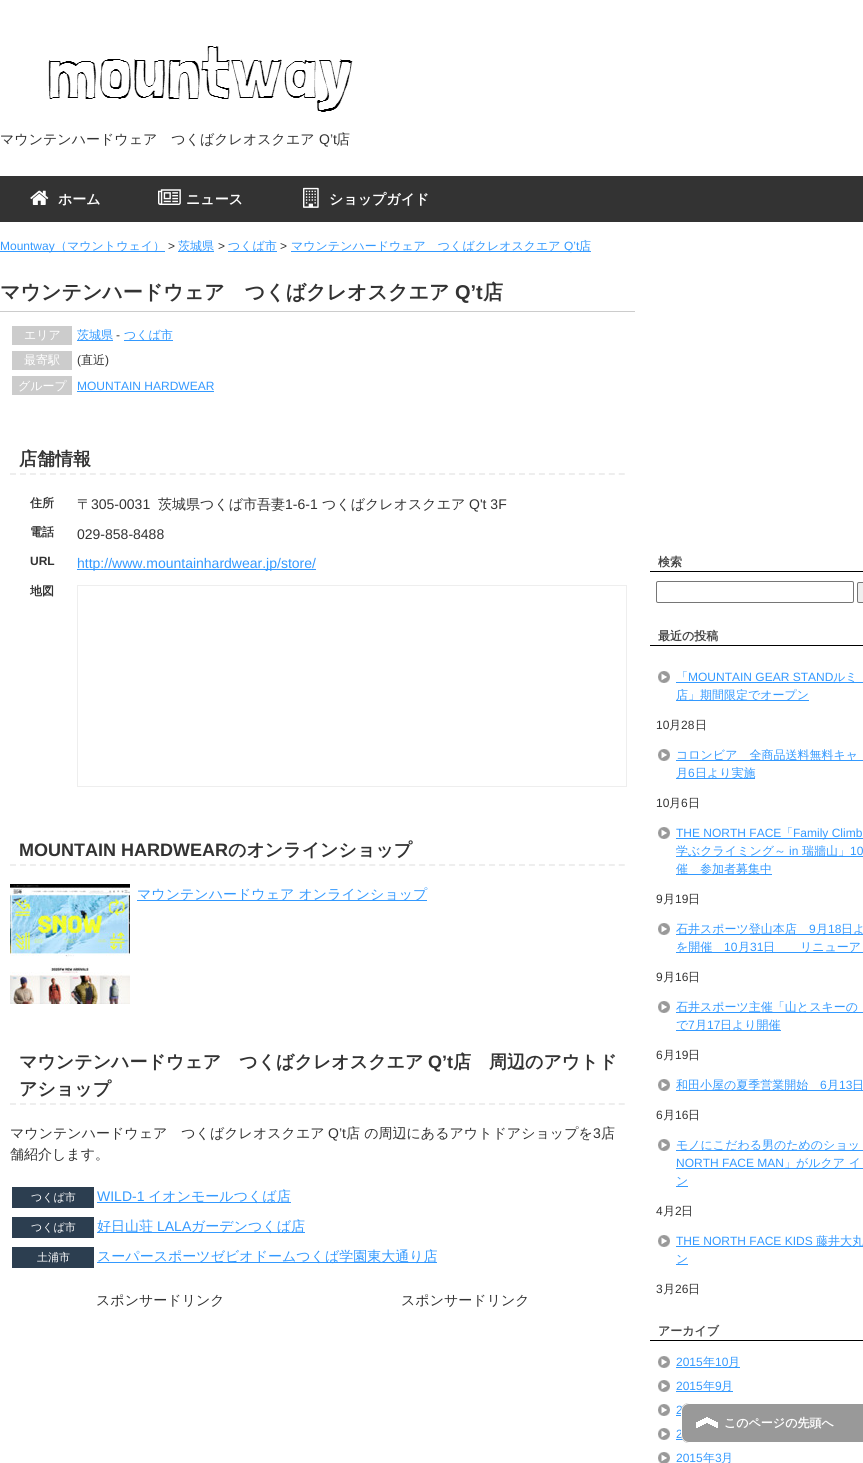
#include <cairo.h>
#include <math.h>
#include <stddef.h>


static void ink(cairo_t *ctx, unsigned color) {
    cairo_set_source_rgb(ctx, (color >> 16) / 255.0, (color >> 8 & 255) / 255.0, (color & 255) / 255.0);
}

static void round_path(cairo_t *ctx, double x, double y, double w, double h, double r) {
    cairo_new_sub_path(ctx);
    cairo_arc(ctx, x + w - r, y + h - r, r, 0, M_PI / 2);
    cairo_arc(ctx, x + r, y + h - r, r, M_PI / 2, M_PI);
    cairo_arc(ctx, x + r, y + r, r, M_PI, 1.5 * M_PI);
    cairo_arc(ctx, x + w - r, y + r, r, 1.5 * M_PI, 2 * M_PI);
    cairo_close_path(ctx);
}

static void paste(cairo_t *ctx, const char *path, double x, double y, double w, double h) {
    cairo_surface_t *image = cairo_image_surface_create_from_png(path);
    cairo_save(ctx);
    cairo_set_source_surface(ctx, image, x, y);
    cairo_rectangle(ctx, x, y, w, h);
    cairo_fill(ctx);
    cairo_restore(ctx);
    cairo_surface_destroy(image);
}

int main(void) {
    cairo_surface_t *surface = cairo_image_surface_create(CAIRO_FORMAT_RGB24, 863, 1463);
    cairo_t *ctx = cairo_create(surface);
    cairo_font_options_t *options = cairo_font_options_create();
    cairo_font_options_set_hint_metrics(options, CAIRO_HINT_METRICS_OFF);
    cairo_font_options_set_hint_style(options, CAIRO_HINT_STYLE_NONE);
    cairo_set_font_options(ctx, options);
    cairo_set_miter_limit(ctx, 4);
    ink(ctx, 0xFFFFFF);
    cairo_paint(ctx);
    paste(ctx, "media/1.png", 48, 46, 305, 66);
    cairo_select_font_face(ctx, "WenQuanYi Zen Hei Medium", CAIRO_FONT_SLANT_NORMAL, CAIRO_FONT_WEIGHT_NORMAL);
    cairo_set_font_size(ctx, 14);
    ink(ctx, 0x333333);
    cairo_move_to(ctx, 0, 144);
    cairo_show_text(ctx, "マウンテンハードウェア　つくばクレオスクエア");
    cairo_select_font_face(ctx, "Liberation Sans", CAIRO_FONT_SLANT_NORMAL, CAIRO_FONT_WEIGHT_NORMAL);
    cairo_move_to(ctx, 319, 144);
    cairo_show_text(ctx, "Q’t");
    cairo_select_font_face(ctx, "WenQuanYi Zen Hei Medium", CAIRO_FONT_SLANT_NORMAL, CAIRO_FONT_WEIGHT_NORMAL);
    cairo_move_to(ctx, 336, 144);
    cairo_show_text(ctx, "店");
    cairo_rectangle(ctx, 0, 176, 863, 46);
    cairo_fill(ctx);
    paste(ctx, "media/2.png", 30, 190, 19, 15);
    cairo_select_font_face(ctx, "WenQuanYi Zen Hei", CAIRO_FONT_SLANT_NORMAL, CAIRO_FONT_WEIGHT_BOLD);
    ink(ctx, 0xFFFFFF);
    cairo_move_to(ctx, 58, 204);
    cairo_show_text(ctx, "ホーム");
    paste(ctx, "media/3.png", 158, 189, 23, 16);
    cairo_move_to(ctx, 186, 204);
    cairo_show_text(ctx, "ニュース");
    paste(ctx, "media/4.png", 303, 187, 16, 21);
    cairo_move_to(ctx, 329, 204);
    cairo_show_text(ctx, "ショップガイド");
    ink(ctx, 0x3399FF);
    cairo_rectangle(ctx, 0, 251, 165, 1);
    cairo_fill(ctx);
    cairo_select_font_face(ctx, "Liberation Sans", CAIRO_FONT_SLANT_NORMAL, CAIRO_FONT_WEIGHT_NORMAL);
    cairo_set_font_size(ctx, 12);
    cairo_move_to(ctx, 0, 250);
    cairo_show_text(ctx, "Mountway");
    cairo_select_font_face(ctx, "WenQuanYi Zen Hei Medium", CAIRO_FONT_SLANT_NORMAL, CAIRO_FONT_WEIGHT_NORMAL);
    cairo_move_to(ctx, 55, 250);
    cairo_show_text(ctx, "（マウントウェイ）");
    cairo_select_font_face(ctx, "Liberation Sans", CAIRO_FONT_SLANT_NORMAL, CAIRO_FONT_WEIGHT_NORMAL);
    ink(ctx, 0x333333);
    cairo_move_to(ctx, 168, 250);
    cairo_show_text(ctx, ">");
    ink(ctx, 0x3399FF);
    cairo_rectangle(ctx, 178, 251, 36, 1);
    cairo_fill(ctx);
    cairo_select_font_face(ctx, "WenQuanYi Zen Hei Medium", CAIRO_FONT_SLANT_NORMAL, CAIRO_FONT_WEIGHT_NORMAL);
    cairo_move_to(ctx, 178, 250);
    cairo_show_text(ctx, "茨城県");
    cairo_select_font_face(ctx, "Liberation Sans", CAIRO_FONT_SLANT_NORMAL, CAIRO_FONT_WEIGHT_NORMAL);
    ink(ctx, 0x333333);
    cairo_move_to(ctx, 218, 250);
    cairo_show_text(ctx, ">");
    ink(ctx, 0x3399FF);
    cairo_rectangle(ctx, 228, 251, 49, 1);
    cairo_fill(ctx);
    cairo_select_font_face(ctx, "WenQuanYi Zen Hei Medium", CAIRO_FONT_SLANT_NORMAL, CAIRO_FONT_WEIGHT_NORMAL);
    cairo_move_to(ctx, 228, 250);
    cairo_show_text(ctx, "つくば市");
    cairo_select_font_face(ctx, "Liberation Sans", CAIRO_FONT_SLANT_NORMAL, CAIRO_FONT_WEIGHT_NORMAL);
    ink(ctx, 0x333333);
    cairo_move_to(ctx, 280, 250);
    cairo_show_text(ctx, ">");
    ink(ctx, 0x3399FF);
    cairo_rectangle(ctx, 291, 251, 300, 1);
    cairo_fill(ctx);
    cairo_select_font_face(ctx, "WenQuanYi Zen Hei Medium", CAIRO_FONT_SLANT_NORMAL, CAIRO_FONT_WEIGHT_NORMAL);
    cairo_move_to(ctx, 291, 250);
    cairo_show_text(ctx, "マウンテンハードウェア　つくばクレオスクエア");
    cairo_select_font_face(ctx, "Liberation Sans", CAIRO_FONT_SLANT_NORMAL, CAIRO_FONT_WEIGHT_NORMAL);
    cairo_move_to(ctx, 564, 250);
    cairo_show_text(ctx, "Q’t");
    cairo_select_font_face(ctx, "WenQuanYi Zen Hei Medium", CAIRO_FONT_SLANT_NORMAL, CAIRO_FONT_WEIGHT_NORMAL);
    cairo_move_to(ctx, 579, 250);
    cairo_show_text(ctx, "店");
    ink(ctx, 0xCCCCCC);
    cairo_rectangle(ctx, 0, 311, 635, 1);
    cairo_fill(ctx);
    cairo_select_font_face(ctx, "WenQuanYi Zen Hei", CAIRO_FONT_SLANT_NORMAL, CAIRO_FONT_WEIGHT_BOLD);
    cairo_set_font_size(ctx, 20);
    ink(ctx, 0x333333);
    cairo_move_to(ctx, 0, 299);
    cairo_show_text(ctx, "マウンテンハードウェア　つくばクレオスクエア");
    cairo_select_font_face(ctx, "Liberation Sans", CAIRO_FONT_SLANT_NORMAL, CAIRO_FONT_WEIGHT_BOLD);
    cairo_move_to(ctx, 455, 299);
    cairo_show_text(ctx, "Q’t");
    cairo_select_font_face(ctx, "WenQuanYi Zen Hei", CAIRO_FONT_SLANT_NORMAL, CAIRO_FONT_WEIGHT_BOLD);
    cairo_move_to(ctx, 483, 299);
    cairo_show_text(ctx, "店");
    ink(ctx, 0xCCCCCC);
    cairo_rectangle(ctx, 12, 326, 60, 19);
    cairo_fill(ctx);
    cairo_select_font_face(ctx, "WenQuanYi Zen Hei Medium", CAIRO_FONT_SLANT_NORMAL, CAIRO_FONT_WEIGHT_NORMAL);
    cairo_set_font_size(ctx, 12);
    ink(ctx, 0xFFFFFF);
    cairo_move_to(ctx, 24, 339);
    cairo_show_text(ctx, "エリア");
    ink(ctx, 0x3399FF);
    cairo_rectangle(ctx, 77, 340, 36, 1);
    cairo_fill(ctx);
    cairo_move_to(ctx, 77, 339);
    cairo_show_text(ctx, "茨城県");
    cairo_select_font_face(ctx, "Liberation Sans", CAIRO_FONT_SLANT_NORMAL, CAIRO_FONT_WEIGHT_NORMAL);
    ink(ctx, 0x333333);
    cairo_move_to(ctx, 116, 339);
    cairo_show_text(ctx, "-");
    ink(ctx, 0x3399FF);
    cairo_rectangle(ctx, 124, 340, 49, 1);
    cairo_fill(ctx);
    cairo_select_font_face(ctx, "WenQuanYi Zen Hei Medium", CAIRO_FONT_SLANT_NORMAL, CAIRO_FONT_WEIGHT_NORMAL);
    cairo_move_to(ctx, 124, 339);
    cairo_show_text(ctx, "つくば市");
    ink(ctx, 0xCCCCCC);
    cairo_rectangle(ctx, 12, 351, 60, 19);
    cairo_fill(ctx);
    ink(ctx, 0xFFFFFF);
    cairo_move_to(ctx, 24, 364);
    cairo_show_text(ctx, "最寄駅");
    cairo_select_font_face(ctx, "Liberation Sans", CAIRO_FONT_SLANT_NORMAL, CAIRO_FONT_WEIGHT_NORMAL);
    ink(ctx, 0x333333);
    cairo_move_to(ctx, 77, 364);
    cairo_show_text(ctx, "(");
    cairo_select_font_face(ctx, "WenQuanYi Zen Hei Medium", CAIRO_FONT_SLANT_NORMAL, CAIRO_FONT_WEIGHT_NORMAL);
    cairo_move_to(ctx, 81, 364);
    cairo_show_text(ctx, "直近");
    cairo_select_font_face(ctx, "Liberation Sans", CAIRO_FONT_SLANT_NORMAL, CAIRO_FONT_WEIGHT_NORMAL);
    cairo_move_to(ctx, 105, 364);
    cairo_show_text(ctx, ")");
    ink(ctx, 0xCCCCCC);
    cairo_rectangle(ctx, 12, 376, 60, 19);
    cairo_fill(ctx);
    cairo_select_font_face(ctx, "WenQuanYi Zen Hei Medium", CAIRO_FONT_SLANT_NORMAL, CAIRO_FONT_WEIGHT_NORMAL);
    ink(ctx, 0xFFFFFF);
    cairo_move_to(ctx, 18, 390);
    cairo_show_text(ctx, "グループ");
    cairo_select_font_face(ctx, "Liberation Sans", CAIRO_FONT_SLANT_NORMAL, CAIRO_FONT_WEIGHT_NORMAL);
    ink(ctx, 0x3399FF);
    cairo_move_to(ctx, 77, 390);
    cairo_show_text(ctx, "MOUNTAIN HARDWEAR");
    cairo_rectangle(ctx, 77, 391, 137, 1);
    cairo_fill(ctx);
    cairo_new_path(ctx);
    cairo_move_to(ctx, 10, 474);
    cairo_line_to(ctx, 625, 474);
    ink(ctx, 0xEEEEEE);
    cairo_set_dash(ctx, (double[]){6, 3.98}, 2, 0);
    cairo_stroke(ctx);
    cairo_select_font_face(ctx, "WenQuanYi Zen Hei", CAIRO_FONT_SLANT_NORMAL, CAIRO_FONT_WEIGHT_BOLD);
    cairo_set_font_size(ctx, 18);
    ink(ctx, 0x333333);
    cairo_move_to(ctx, 19, 465);
    cairo_show_text(ctx, "店舗情報");
    cairo_set_font_size(ctx, 12);
    cairo_move_to(ctx, 30, 507);
    cairo_show_text(ctx, "住所");
    cairo_select_font_face(ctx, "WenQuanYi Zen Hei Medium", CAIRO_FONT_SLANT_NORMAL, CAIRO_FONT_WEIGHT_NORMAL);
    cairo_set_font_size(ctx, 14);
    cairo_move_to(ctx, 77, 509);
    cairo_show_text(ctx, "〒");
    cairo_select_font_face(ctx, "Liberation Sans", CAIRO_FONT_SLANT_NORMAL, CAIRO_FONT_WEIGHT_NORMAL);
    cairo_move_to(ctx, 91, 509);
    cairo_show_text(ctx, "305-0031");
    cairo_select_font_face(ctx, "WenQuanYi Zen Hei Medium", CAIRO_FONT_SLANT_NORMAL, CAIRO_FONT_WEIGHT_NORMAL);
    cairo_move_to(ctx, 158, 509);
    cairo_show_text(ctx, "茨城県つくば市吾妻");
    cairo_select_font_face(ctx, "Liberation Sans", CAIRO_FONT_SLANT_NORMAL, CAIRO_FONT_WEIGHT_NORMAL);
    cairo_move_to(ctx, 285, 509);
    cairo_show_text(ctx, "1-6-1");
    cairo_select_font_face(ctx, "WenQuanYi Zen Hei Medium", CAIRO_FONT_SLANT_NORMAL, CAIRO_FONT_WEIGHT_NORMAL);
    cairo_move_to(ctx, 322, 509);
    cairo_show_text(ctx, "つくばクレオスクエア");
    cairo_select_font_face(ctx, "Liberation Sans", CAIRO_FONT_SLANT_NORMAL, CAIRO_FONT_WEIGHT_NORMAL);
    cairo_move_to(ctx, 469, 509);
    cairo_show_text(ctx, "Q't 3F");
    cairo_select_font_face(ctx, "WenQuanYi Zen Hei", CAIRO_FONT_SLANT_NORMAL, CAIRO_FONT_WEIGHT_BOLD);
    cairo_set_font_size(ctx, 12);
    cairo_move_to(ctx, 30, 536);
    cairo_show_text(ctx, "電話");
    cairo_select_font_face(ctx, "Liberation Sans", CAIRO_FONT_SLANT_NORMAL, CAIRO_FONT_WEIGHT_NORMAL);
    cairo_set_font_size(ctx, 14);
    cairo_move_to(ctx, 77, 539);
    cairo_show_text(ctx, "029-858-8488");
    cairo_select_font_face(ctx, "Liberation Sans", CAIRO_FONT_SLANT_NORMAL, CAIRO_FONT_WEIGHT_BOLD);
    cairo_set_font_size(ctx, 12);
    cairo_move_to(ctx, 30, 565);
    cairo_show_text(ctx, "URL");
    ink(ctx, 0x3399FF);
    cairo_rectangle(ctx, 77, 569, 239, 1);
    cairo_fill(ctx);
    cairo_select_font_face(ctx, "Liberation Sans", CAIRO_FONT_SLANT_NORMAL, CAIRO_FONT_WEIGHT_NORMAL);
    cairo_set_font_size(ctx, 14);
    cairo_move_to(ctx, 77, 568);
    cairo_show_text(ctx, "http://www.mountainhardwear.jp/store/");
    cairo_select_font_face(ctx, "WenQuanYi Zen Hei", CAIRO_FONT_SLANT_NORMAL, CAIRO_FONT_WEIGHT_BOLD);
    cairo_set_font_size(ctx, 12);
    ink(ctx, 0x333333);
    cairo_move_to(ctx, 30, 595);
    cairo_show_text(ctx, "地図");
    cairo_rectangle(ctx, 77.5, 585.5, 549, 201);
    ink(ctx, 0xEEEEEE);
    cairo_set_line_width(ctx, 1);
    cairo_set_dash(ctx, NULL, 0, 0);
    cairo_stroke(ctx);
    cairo_new_path(ctx);
    cairo_move_to(ctx, 10, 865);
    cairo_line_to(ctx, 625, 865);
    cairo_set_line_width(ctx, 2);
    cairo_set_dash(ctx, (double[]){6, 3.98}, 2, 0);
    cairo_stroke(ctx);
    cairo_select_font_face(ctx, "Liberation Sans", CAIRO_FONT_SLANT_NORMAL, CAIRO_FONT_WEIGHT_BOLD);
    cairo_set_font_size(ctx, 18);
    ink(ctx, 0x333333);
    cairo_move_to(ctx, 19, 856);
    cairo_show_text(ctx, "MOUNTAIN HARDWEAR");
    cairo_select_font_face(ctx, "WenQuanYi Zen Hei", CAIRO_FONT_SLANT_NORMAL, CAIRO_FONT_WEIGHT_BOLD);
    cairo_move_to(ctx, 228, 856);
    cairo_show_text(ctx, "のオンラインショップ");
    paste(ctx, "media/5.png", 10, 884, 120, 120);
    ink(ctx, 0x3399FF);
    cairo_rectangle(ctx, 137, 900, 290, 1);
    cairo_fill(ctx);
    cairo_select_font_face(ctx, "WenQuanYi Zen Hei Medium", CAIRO_FONT_SLANT_NORMAL, CAIRO_FONT_WEIGHT_NORMAL);
    cairo_set_font_size(ctx, 14);
    cairo_move_to(ctx, 137, 899);
    cairo_show_text(ctx, "マウンテンハードウェア オンラインショップ");
    cairo_new_path(ctx);
    cairo_move_to(ctx, 10, 1104);
    cairo_line_to(ctx, 625, 1104);
    ink(ctx, 0xEEEEEE);
    cairo_stroke(ctx);
    cairo_select_font_face(ctx, "WenQuanYi Zen Hei", CAIRO_FONT_SLANT_NORMAL, CAIRO_FONT_WEIGHT_BOLD);
    cairo_set_font_size(ctx, 18);
    ink(ctx, 0x333333);
    cairo_move_to(ctx, 19, 1068);
    cairo_show_text(ctx, "マウンテンハードウェア　つくばクレオスクエア");
    cairo_select_font_face(ctx, "Liberation Sans", CAIRO_FONT_SLANT_NORMAL, CAIRO_FONT_WEIGHT_BOLD);
    cairo_move_to(ctx, 428, 1068);
    cairo_show_text(ctx, "Q’t");
    cairo_select_font_face(ctx, "WenQuanYi Zen Hei", CAIRO_FONT_SLANT_NORMAL, CAIRO_FONT_WEIGHT_BOLD);
    cairo_move_to(ctx, 453, 1068);
    cairo_show_text(ctx, "店　周辺のアウトド");
    cairo_move_to(ctx, 19, 1095);
    cairo_show_text(ctx, "アショップ");
    cairo_select_font_face(ctx, "WenQuanYi Zen Hei Medium", CAIRO_FONT_SLANT_NORMAL, CAIRO_FONT_WEIGHT_NORMAL);
    cairo_set_font_size(ctx, 14);
    cairo_move_to(ctx, 10, 1138);
    cairo_show_text(ctx, "マウンテンハードウェア　つくばクレオスクエア");
    cairo_select_font_face(ctx, "Liberation Sans", CAIRO_FONT_SLANT_NORMAL, CAIRO_FONT_WEIGHT_NORMAL);
    cairo_move_to(ctx, 328, 1138);
    cairo_show_text(ctx, "Q’t");
    cairo_select_font_face(ctx, "WenQuanYi Zen Hei Medium", CAIRO_FONT_SLANT_NORMAL, CAIRO_FONT_WEIGHT_NORMAL);
    cairo_move_to(ctx, 346, 1138);
    cairo_show_text(ctx, "店 の周辺にあるアウトドアショップを");
    cairo_select_font_face(ctx, "Liberation Sans", CAIRO_FONT_SLANT_NORMAL, CAIRO_FONT_WEIGHT_NORMAL);
    cairo_move_to(ctx, 593, 1138);
    cairo_show_text(ctx, "3");
    cairo_select_font_face(ctx, "WenQuanYi Zen Hei Medium", CAIRO_FONT_SLANT_NORMAL, CAIRO_FONT_WEIGHT_NORMAL);
    cairo_move_to(ctx, 601, 1138);
    cairo_show_text(ctx, "店");
    cairo_move_to(ctx, 10, 1159);
    cairo_show_text(ctx, "舗紹介します。");
    ink(ctx, 0x2C3E50);
    cairo_rectangle(ctx, 12, 1187, 82, 21);
    cairo_fill(ctx);
    cairo_set_font_size(ctx, 11);
    ink(ctx, 0xFFFFFF);
    cairo_move_to(ctx, 31, 1201);
    cairo_show_text(ctx, "つくば市");
    cairo_select_font_face(ctx, "Liberation Sans", CAIRO_FONT_SLANT_NORMAL, CAIRO_FONT_WEIGHT_NORMAL);
    cairo_set_font_size(ctx, 14);
    ink(ctx, 0x3399FF);
    cairo_move_to(ctx, 97, 1201);
    cairo_show_text(ctx, "WILD-1");
    cairo_rectangle(ctx, 97, 1202, 194, 1);
    cairo_fill(ctx);
    cairo_select_font_face(ctx, "WenQuanYi Zen Hei Medium", CAIRO_FONT_SLANT_NORMAL, CAIRO_FONT_WEIGHT_NORMAL);
    cairo_move_to(ctx, 148, 1201);
    cairo_show_text(ctx, "イオンモールつくば店");
    ink(ctx, 0x2C3E50);
    cairo_rectangle(ctx, 12, 1217, 82, 21);
    cairo_fill(ctx);
    cairo_set_font_size(ctx, 11);
    ink(ctx, 0xFFFFFF);
    cairo_move_to(ctx, 31, 1231);
    cairo_show_text(ctx, "つくば市");
    ink(ctx, 0x3399FF);
    cairo_rectangle(ctx, 97, 1232, 208, 1);
    cairo_fill(ctx);
    cairo_set_font_size(ctx, 14);
    cairo_move_to(ctx, 97, 1231);
    cairo_show_text(ctx, "好日山荘");
    cairo_select_font_face(ctx, "Liberation Sans", CAIRO_FONT_SLANT_NORMAL, CAIRO_FONT_WEIGHT_NORMAL);
    cairo_move_to(ctx, 157, 1231);
    cairo_show_text(ctx, "LALA");
    cairo_select_font_face(ctx, "WenQuanYi Zen Hei Medium", CAIRO_FONT_SLANT_NORMAL, CAIRO_FONT_WEIGHT_NORMAL);
    cairo_move_to(ctx, 191, 1231);
    cairo_show_text(ctx, "ガーデンつくば店");
    ink(ctx, 0x2C3E50);
    cairo_rectangle(ctx, 12, 1247, 82, 21);
    cairo_fill(ctx);
    cairo_set_font_size(ctx, 11);
    ink(ctx, 0xFFFFFF);
    cairo_move_to(ctx, 37, 1261);
    cairo_show_text(ctx, "土浦市");
    ink(ctx, 0x3399FF);
    cairo_rectangle(ctx, 97, 1262, 340, 1);
    cairo_fill(ctx);
    cairo_set_font_size(ctx, 14);
    cairo_move_to(ctx, 97, 1261);
    cairo_show_text(ctx, "スーパースポーツゼビオドームつくば学園東大通り店");
    ink(ctx, 0x333333);
    cairo_move_to(ctx, 96, 1305);
    cairo_show_text(ctx, "スポンサードリンク");
    cairo_move_to(ctx, 401, 1305);
    cairo_show_text(ctx, "スポンサードリンク");
    ink(ctx, 0x000000);
    cairo_rectangle(ctx, 650, 571, 213, 1);
    cairo_fill(ctx);
    cairo_select_font_face(ctx, "WenQuanYi Zen Hei", CAIRO_FONT_SLANT_NORMAL, CAIRO_FONT_WEIGHT_BOLD);
    cairo_set_font_size(ctx, 12);
    ink(ctx, 0x454545);
    cairo_move_to(ctx, 658, 566);
    cairo_show_text(ctx, "検索");
    round_path(ctx, 656.5, 581.5, 197, 21, 1.5);
    ink(ctx, 0x767676);
    cairo_set_line_width(ctx, 1);
    cairo_set_dash(ctx, NULL, 0, 0);
    cairo_stroke(ctx);
    ink(ctx, 0xEFEFEF);
    round_path(ctx, 857.5, 582.5, 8, 20, 1.5);
    cairo_fill_preserve(ctx);
    ink(ctx, 0x767676);
    cairo_stroke(ctx);
    ink(ctx, 0x000000);
    cairo_rectangle(ctx, 650, 645, 213, 1);
    cairo_fill(ctx);
    ink(ctx, 0x454545);
    cairo_move_to(ctx, 658, 640);
    cairo_show_text(ctx, "最近の投稿");
    paste(ctx, "media/6.png", 658, 671, 12, 12);
    cairo_select_font_face(ctx, "WenQuanYi Zen Hei Medium", CAIRO_FONT_SLANT_NORMAL, CAIRO_FONT_WEIGHT_NORMAL);
    ink(ctx, 0x3399FF);
    cairo_move_to(ctx, 676, 681);
    cairo_show_text(ctx, "「");
    cairo_select_font_face(ctx, "Liberation Sans", CAIRO_FONT_SLANT_NORMAL, CAIRO_FONT_WEIGHT_NORMAL);
    cairo_move_to(ctx, 688, 681);
    cairo_show_text(ctx, "MOUNTAIN GEAR STAND");
    cairo_rectangle(ctx, 676, 682, 187, 1);
    cairo_fill(ctx);
    cairo_select_font_face(ctx, "WenQuanYi Zen Hei Medium", CAIRO_FONT_SLANT_NORMAL, CAIRO_FONT_WEIGHT_NORMAL);
    cairo_move_to(ctx, 833, 681);
    cairo_show_text(ctx, "ルミ");
    cairo_rectangle(ctx, 676, 700, 133, 1);
    cairo_fill(ctx);
    cairo_move_to(ctx, 676, 699);
    cairo_show_text(ctx, "店」期間限定でオープン");
    cairo_select_font_face(ctx, "Liberation Sans", CAIRO_FONT_SLANT_NORMAL, CAIRO_FONT_WEIGHT_NORMAL);
    ink(ctx, 0x333333);
    cairo_move_to(ctx, 656, 729);
    cairo_show_text(ctx, "10");
    cairo_select_font_face(ctx, "WenQuanYi Zen Hei Medium", CAIRO_FONT_SLANT_NORMAL, CAIRO_FONT_WEIGHT_NORMAL);
    cairo_move_to(ctx, 669, 729);
    cairo_show_text(ctx, "月");
    cairo_select_font_face(ctx, "Liberation Sans", CAIRO_FONT_SLANT_NORMAL, CAIRO_FONT_WEIGHT_NORMAL);
    cairo_move_to(ctx, 681, 729);
    cairo_show_text(ctx, "28");
    cairo_select_font_face(ctx, "WenQuanYi Zen Hei Medium", CAIRO_FONT_SLANT_NORMAL, CAIRO_FONT_WEIGHT_NORMAL);
    cairo_move_to(ctx, 695, 729);
    cairo_show_text(ctx, "日");
    paste(ctx, "media/6.png", 658, 749, 12, 12);
    ink(ctx, 0x3399FF);
    cairo_rectangle(ctx, 676, 760, 187, 1);
    cairo_fill(ctx);
    cairo_move_to(ctx, 676, 759);
    cairo_show_text(ctx, "コロンビア　全商品送料無料キャ");
    cairo_rectangle(ctx, 676, 778, 79, 1);
    cairo_fill(ctx);
    cairo_move_to(ctx, 676, 777);
    cairo_show_text(ctx, "月");
    cairo_select_font_face(ctx, "Liberation Sans", CAIRO_FONT_SLANT_NORMAL, CAIRO_FONT_WEIGHT_NORMAL);
    cairo_move_to(ctx, 688, 777);
    cairo_show_text(ctx, "6");
    cairo_select_font_face(ctx, "WenQuanYi Zen Hei Medium", CAIRO_FONT_SLANT_NORMAL, CAIRO_FONT_WEIGHT_NORMAL);
    cairo_move_to(ctx, 695, 777);
    cairo_show_text(ctx, "日より実施");
    cairo_select_font_face(ctx, "Liberation Sans", CAIRO_FONT_SLANT_NORMAL, CAIRO_FONT_WEIGHT_NORMAL);
    ink(ctx, 0x333333);
    cairo_move_to(ctx, 656, 807);
    cairo_show_text(ctx, "10");
    cairo_select_font_face(ctx, "WenQuanYi Zen Hei Medium", CAIRO_FONT_SLANT_NORMAL, CAIRO_FONT_WEIGHT_NORMAL);
    cairo_move_to(ctx, 669, 807);
    cairo_show_text(ctx, "月");
    cairo_select_font_face(ctx, "Liberation Sans", CAIRO_FONT_SLANT_NORMAL, CAIRO_FONT_WEIGHT_NORMAL);
    cairo_move_to(ctx, 681, 807);
    cairo_show_text(ctx, "6");
    cairo_select_font_face(ctx, "WenQuanYi Zen Hei Medium", CAIRO_FONT_SLANT_NORMAL, CAIRO_FONT_WEIGHT_NORMAL);
    cairo_move_to(ctx, 688, 807);
    cairo_show_text(ctx, "日");
    paste(ctx, "media/6.png", 658, 827, 12, 12);
    cairo_select_font_face(ctx, "Liberation Sans", CAIRO_FONT_SLANT_NORMAL, CAIRO_FONT_WEIGHT_NORMAL);
    ink(ctx, 0x3399FF);
    cairo_move_to(ctx, 676, 837);
    cairo_show_text(ctx, "THE NORTH FACE");
    cairo_select_font_face(ctx, "WenQuanYi Zen Hei Medium", CAIRO_FONT_SLANT_NORMAL, CAIRO_FONT_WEIGHT_NORMAL);
    cairo_move_to(ctx, 781, 837);
    cairo_show_text(ctx, "「");
    cairo_rectangle(ctx, 676, 838, 187, 1);
    cairo_fill(ctx);
    cairo_select_font_face(ctx, "Liberation Sans", CAIRO_FONT_SLANT_NORMAL, CAIRO_FONT_WEIGHT_NORMAL);
    cairo_move_to(ctx, 793, 837);
    cairo_show_text(ctx, "Family Climb");
    cairo_rectangle(ctx, 676, 856, 187, 1);
    cairo_fill(ctx);
    cairo_select_font_face(ctx, "WenQuanYi Zen Hei Medium", CAIRO_FONT_SLANT_NORMAL, CAIRO_FONT_WEIGHT_NORMAL);
    cairo_move_to(ctx, 676, 855);
    cairo_show_text(ctx, "学ぶクライミング～");
    cairo_select_font_face(ctx, "Liberation Sans", CAIRO_FONT_SLANT_NORMAL, CAIRO_FONT_WEIGHT_NORMAL);
    cairo_move_to(ctx, 789, 855);
    cairo_show_text(ctx, "in");
    cairo_select_font_face(ctx, "WenQuanYi Zen Hei Medium", CAIRO_FONT_SLANT_NORMAL, CAIRO_FONT_WEIGHT_NORMAL);
    cairo_move_to(ctx, 802, 855);
    cairo_show_text(ctx, "瑞牆山」");
    cairo_select_font_face(ctx, "Liberation Sans", CAIRO_FONT_SLANT_NORMAL, CAIRO_FONT_WEIGHT_NORMAL);
    cairo_move_to(ctx, 850, 855);
    cairo_show_text(ctx, "10");
    cairo_rectangle(ctx, 676, 874, 96, 1);
    cairo_fill(ctx);
    cairo_select_font_face(ctx, "WenQuanYi Zen Hei Medium", CAIRO_FONT_SLANT_NORMAL, CAIRO_FONT_WEIGHT_NORMAL);
    cairo_move_to(ctx, 676, 873);
    cairo_show_text(ctx, "催　参加者募集中");
    cairo_select_font_face(ctx, "Liberation Sans", CAIRO_FONT_SLANT_NORMAL, CAIRO_FONT_WEIGHT_NORMAL);
    ink(ctx, 0x333333);
    cairo_move_to(ctx, 656, 903);
    cairo_show_text(ctx, "9");
    cairo_select_font_face(ctx, "WenQuanYi Zen Hei Medium", CAIRO_FONT_SLANT_NORMAL, CAIRO_FONT_WEIGHT_NORMAL);
    cairo_move_to(ctx, 663, 903);
    cairo_show_text(ctx, "月");
    cairo_select_font_face(ctx, "Liberation Sans", CAIRO_FONT_SLANT_NORMAL, CAIRO_FONT_WEIGHT_NORMAL);
    cairo_move_to(ctx, 675, 903);
    cairo_show_text(ctx, "19");
    cairo_select_font_face(ctx, "WenQuanYi Zen Hei Medium", CAIRO_FONT_SLANT_NORMAL, CAIRO_FONT_WEIGHT_NORMAL);
    cairo_move_to(ctx, 688, 903);
    cairo_show_text(ctx, "日");
    paste(ctx, "media/6.png", 658, 923, 12, 12);
    ink(ctx, 0x3399FF);
    cairo_rectangle(ctx, 676, 934, 187, 1);
    cairo_fill(ctx);
    cairo_move_to(ctx, 676, 933);
    cairo_show_text(ctx, "石井スポーツ登山本店");
    cairo_select_font_face(ctx, "Liberation Sans", CAIRO_FONT_SLANT_NORMAL, CAIRO_FONT_WEIGHT_NORMAL);
    cairo_move_to(ctx, 809, 933);
    cairo_show_text(ctx, "9");
    cairo_select_font_face(ctx, "WenQuanYi Zen Hei Medium", CAIRO_FONT_SLANT_NORMAL, CAIRO_FONT_WEIGHT_NORMAL);
    cairo_move_to(ctx, 816, 933);
    cairo_show_text(ctx, "月");
    cairo_select_font_face(ctx, "Liberation Sans", CAIRO_FONT_SLANT_NORMAL, CAIRO_FONT_WEIGHT_NORMAL);
    cairo_move_to(ctx, 828, 933);
    cairo_show_text(ctx, "18");
    cairo_select_font_face(ctx, "WenQuanYi Zen Hei Medium", CAIRO_FONT_SLANT_NORMAL, CAIRO_FONT_WEIGHT_NORMAL);
    cairo_move_to(ctx, 841, 933);
    cairo_show_text(ctx, "日よ");
    cairo_rectangle(ctx, 676, 952, 187, 1);
    cairo_fill(ctx);
    cairo_move_to(ctx, 676, 951);
    cairo_show_text(ctx, "を開催");
    cairo_select_font_face(ctx, "Liberation Sans", CAIRO_FONT_SLANT_NORMAL, CAIRO_FONT_WEIGHT_NORMAL);
    cairo_move_to(ctx, 724, 951);
    cairo_show_text(ctx, "10");
    cairo_select_font_face(ctx, "WenQuanYi Zen Hei Medium", CAIRO_FONT_SLANT_NORMAL, CAIRO_FONT_WEIGHT_NORMAL);
    cairo_move_to(ctx, 738, 951);
    cairo_show_text(ctx, "月");
    cairo_select_font_face(ctx, "Liberation Sans", CAIRO_FONT_SLANT_NORMAL, CAIRO_FONT_WEIGHT_NORMAL);
    cairo_move_to(ctx, 750, 951);
    cairo_show_text(ctx, "31");
    cairo_select_font_face(ctx, "WenQuanYi Zen Hei Medium", CAIRO_FONT_SLANT_NORMAL, CAIRO_FONT_WEIGHT_NORMAL);
    cairo_move_to(ctx, 763, 951);
    cairo_show_text(ctx, "日");
    cairo_move_to(ctx, 800, 951);
    cairo_show_text(ctx, "リニューア");
    cairo_select_font_face(ctx, "Liberation Sans", CAIRO_FONT_SLANT_NORMAL, CAIRO_FONT_WEIGHT_NORMAL);
    ink(ctx, 0x333333);
    cairo_move_to(ctx, 656, 981);
    cairo_show_text(ctx, "9");
    cairo_select_font_face(ctx, "WenQuanYi Zen Hei Medium", CAIRO_FONT_SLANT_NORMAL, CAIRO_FONT_WEIGHT_NORMAL);
    cairo_move_to(ctx, 663, 981);
    cairo_show_text(ctx, "月");
    cairo_select_font_face(ctx, "Liberation Sans", CAIRO_FONT_SLANT_NORMAL, CAIRO_FONT_WEIGHT_NORMAL);
    cairo_move_to(ctx, 675, 981);
    cairo_show_text(ctx, "16");
    cairo_select_font_face(ctx, "WenQuanYi Zen Hei Medium", CAIRO_FONT_SLANT_NORMAL, CAIRO_FONT_WEIGHT_NORMAL);
    cairo_move_to(ctx, 688, 981);
    cairo_show_text(ctx, "日");
    paste(ctx, "media/6.png", 658, 1001, 12, 12);
    ink(ctx, 0x3399FF);
    cairo_rectangle(ctx, 676, 1012, 187, 1);
    cairo_fill(ctx);
    cairo_move_to(ctx, 676, 1011);
    cairo_show_text(ctx, "石井スポーツ主催「山とスキーの");
    cairo_rectangle(ctx, 676, 1030, 105, 1);
    cairo_fill(ctx);
    cairo_move_to(ctx, 676, 1029);
    cairo_show_text(ctx, "で");
    cairo_select_font_face(ctx, "Liberation Sans", CAIRO_FONT_SLANT_NORMAL, CAIRO_FONT_WEIGHT_NORMAL);
    cairo_move_to(ctx, 688, 1029);
    cairo_show_text(ctx, "7");
    cairo_select_font_face(ctx, "WenQuanYi Zen Hei Medium", CAIRO_FONT_SLANT_NORMAL, CAIRO_FONT_WEIGHT_NORMAL);
    cairo_move_to(ctx, 695, 1029);
    cairo_show_text(ctx, "月");
    cairo_select_font_face(ctx, "Liberation Sans", CAIRO_FONT_SLANT_NORMAL, CAIRO_FONT_WEIGHT_NORMAL);
    cairo_move_to(ctx, 707, 1029);
    cairo_show_text(ctx, "17");
    cairo_select_font_face(ctx, "WenQuanYi Zen Hei Medium", CAIRO_FONT_SLANT_NORMAL, CAIRO_FONT_WEIGHT_NORMAL);
    cairo_move_to(ctx, 720, 1029);
    cairo_show_text(ctx, "日より開催");
    cairo_select_font_face(ctx, "Liberation Sans", CAIRO_FONT_SLANT_NORMAL, CAIRO_FONT_WEIGHT_NORMAL);
    ink(ctx, 0x333333);
    cairo_move_to(ctx, 656, 1059);
    cairo_show_text(ctx, "6");
    cairo_select_font_face(ctx, "WenQuanYi Zen Hei Medium", CAIRO_FONT_SLANT_NORMAL, CAIRO_FONT_WEIGHT_NORMAL);
    cairo_move_to(ctx, 663, 1059);
    cairo_show_text(ctx, "月");
    cairo_select_font_face(ctx, "Liberation Sans", CAIRO_FONT_SLANT_NORMAL, CAIRO_FONT_WEIGHT_NORMAL);
    cairo_move_to(ctx, 675, 1059);
    cairo_show_text(ctx, "19");
    cairo_select_font_face(ctx, "WenQuanYi Zen Hei Medium", CAIRO_FONT_SLANT_NORMAL, CAIRO_FONT_WEIGHT_NORMAL);
    cairo_move_to(ctx, 688, 1059);
    cairo_show_text(ctx, "日");
    paste(ctx, "media/6.png", 658, 1079, 12, 12);
    ink(ctx, 0x3399FF);
    cairo_rectangle(ctx, 676, 1090, 187, 1);
    cairo_fill(ctx);
    cairo_move_to(ctx, 676, 1089);
    cairo_show_text(ctx, "和田小屋の夏季営業開始");
    cairo_select_font_face(ctx, "Liberation Sans", CAIRO_FONT_SLANT_NORMAL, CAIRO_FONT_WEIGHT_NORMAL);
    cairo_move_to(ctx, 820, 1089);
    cairo_show_text(ctx, "6");
    cairo_select_font_face(ctx, "WenQuanYi Zen Hei Medium", CAIRO_FONT_SLANT_NORMAL, CAIRO_FONT_WEIGHT_NORMAL);
    cairo_move_to(ctx, 827, 1089);
    cairo_show_text(ctx, "月");
    cairo_select_font_face(ctx, "Liberation Sans", CAIRO_FONT_SLANT_NORMAL, CAIRO_FONT_WEIGHT_NORMAL);
    cairo_move_to(ctx, 839, 1089);
    cairo_show_text(ctx, "13");
    cairo_select_font_face(ctx, "WenQuanYi Zen Hei Medium", CAIRO_FONT_SLANT_NORMAL, CAIRO_FONT_WEIGHT_NORMAL);
    cairo_move_to(ctx, 852, 1089);
    cairo_show_text(ctx, "日");
    cairo_select_font_face(ctx, "Liberation Sans", CAIRO_FONT_SLANT_NORMAL, CAIRO_FONT_WEIGHT_NORMAL);
    ink(ctx, 0x333333);
    cairo_move_to(ctx, 656, 1119);
    cairo_show_text(ctx, "6");
    cairo_select_font_face(ctx, "WenQuanYi Zen Hei Medium", CAIRO_FONT_SLANT_NORMAL, CAIRO_FONT_WEIGHT_NORMAL);
    cairo_move_to(ctx, 663, 1119);
    cairo_show_text(ctx, "月");
    cairo_select_font_face(ctx, "Liberation Sans", CAIRO_FONT_SLANT_NORMAL, CAIRO_FONT_WEIGHT_NORMAL);
    cairo_move_to(ctx, 675, 1119);
    cairo_show_text(ctx, "16");
    cairo_select_font_face(ctx, "WenQuanYi Zen Hei Medium", CAIRO_FONT_SLANT_NORMAL, CAIRO_FONT_WEIGHT_NORMAL);
    cairo_move_to(ctx, 688, 1119);
    cairo_show_text(ctx, "日");
    paste(ctx, "media/6.png", 658, 1139, 12, 12);
    ink(ctx, 0x3399FF);
    cairo_rectangle(ctx, 676, 1150, 187, 1);
    cairo_fill(ctx);
    cairo_move_to(ctx, 676, 1149);
    cairo_show_text(ctx, "モノにこだわる男のためのショッ");
    cairo_select_font_face(ctx, "Liberation Sans", CAIRO_FONT_SLANT_NORMAL, CAIRO_FONT_WEIGHT_NORMAL);
    cairo_move_to(ctx, 676, 1167);
    cairo_show_text(ctx, "NORTH FACE MAN");
    cairo_rectangle(ctx, 676, 1168, 187, 1);
    cairo_fill(ctx);
    cairo_select_font_face(ctx, "WenQuanYi Zen Hei Medium", CAIRO_FONT_SLANT_NORMAL, CAIRO_FONT_WEIGHT_NORMAL);
    cairo_move_to(ctx, 784, 1167);
    cairo_show_text(ctx, "」がルクア イ");
    cairo_move_to(ctx, 676, 1185);
    cairo_show_text(ctx, "ン");
    cairo_rectangle(ctx, 676, 1186, 12, 1);
    cairo_fill(ctx);
    cairo_select_font_face(ctx, "Liberation Sans", CAIRO_FONT_SLANT_NORMAL, CAIRO_FONT_WEIGHT_NORMAL);
    ink(ctx, 0x333333);
    cairo_move_to(ctx, 656, 1215);
    cairo_show_text(ctx, "4");
    cairo_select_font_face(ctx, "WenQuanYi Zen Hei Medium", CAIRO_FONT_SLANT_NORMAL, CAIRO_FONT_WEIGHT_NORMAL);
    cairo_move_to(ctx, 663, 1215);
    cairo_show_text(ctx, "月");
    cairo_select_font_face(ctx, "Liberation Sans", CAIRO_FONT_SLANT_NORMAL, CAIRO_FONT_WEIGHT_NORMAL);
    cairo_move_to(ctx, 675, 1215);
    cairo_show_text(ctx, "2");
    cairo_select_font_face(ctx, "WenQuanYi Zen Hei Medium", CAIRO_FONT_SLANT_NORMAL, CAIRO_FONT_WEIGHT_NORMAL);
    cairo_move_to(ctx, 681, 1215);
    cairo_show_text(ctx, "日");
    paste(ctx, "media/6.png", 658, 1235, 12, 12);
    cairo_select_font_face(ctx, "Liberation Sans", CAIRO_FONT_SLANT_NORMAL, CAIRO_FONT_WEIGHT_NORMAL);
    ink(ctx, 0x3399FF);
    cairo_move_to(ctx, 676, 1245);
    cairo_show_text(ctx, "THE NORTH FACE KIDS");
    cairo_rectangle(ctx, 676, 1246, 187, 1);
    cairo_fill(ctx);
    cairo_select_font_face(ctx, "WenQuanYi Zen Hei Medium", CAIRO_FONT_SLANT_NORMAL, CAIRO_FONT_WEIGHT_NORMAL);
    cairo_move_to(ctx, 816, 1245);
    cairo_show_text(ctx, "藤井大丸");
    cairo_move_to(ctx, 676, 1263);
    cairo_show_text(ctx, "ン");
    cairo_rectangle(ctx, 676, 1264, 12, 1);
    cairo_fill(ctx);
    cairo_select_font_face(ctx, "Liberation Sans", CAIRO_FONT_SLANT_NORMAL, CAIRO_FONT_WEIGHT_NORMAL);
    ink(ctx, 0x333333);
    cairo_move_to(ctx, 656, 1293);
    cairo_show_text(ctx, "3");
    cairo_select_font_face(ctx, "WenQuanYi Zen Hei Medium", CAIRO_FONT_SLANT_NORMAL, CAIRO_FONT_WEIGHT_NORMAL);
    cairo_move_to(ctx, 663, 1293);
    cairo_show_text(ctx, "月");
    cairo_select_font_face(ctx, "Liberation Sans", CAIRO_FONT_SLANT_NORMAL, CAIRO_FONT_WEIGHT_NORMAL);
    cairo_move_to(ctx, 675, 1293);
    cairo_show_text(ctx, "26");
    cairo_select_font_face(ctx, "WenQuanYi Zen Hei Medium", CAIRO_FONT_SLANT_NORMAL, CAIRO_FONT_WEIGHT_NORMAL);
    cairo_move_to(ctx, 688, 1293);
    cairo_show_text(ctx, "日");
    ink(ctx, 0x000000);
    cairo_rectangle(ctx, 650, 1340, 213, 1);
    cairo_fill(ctx);
    cairo_select_font_face(ctx, "WenQuanYi Zen Hei", CAIRO_FONT_SLANT_NORMAL, CAIRO_FONT_WEIGHT_BOLD);
    ink(ctx, 0x454545);
    cairo_move_to(ctx, 658, 1335);
    cairo_show_text(ctx, "アーカイブ");
    paste(ctx, "media/6.png", 658, 1356, 12, 12);
    cairo_select_font_face(ctx, "Liberation Sans", CAIRO_FONT_SLANT_NORMAL, CAIRO_FONT_WEIGHT_NORMAL);
    ink(ctx, 0x3399FF);
    cairo_move_to(ctx, 676, 1366);
    cairo_show_text(ctx, "2015");
    cairo_rectangle(ctx, 676, 1367, 64, 1);
    cairo_fill(ctx);
    cairo_select_font_face(ctx, "WenQuanYi Zen Hei Medium", CAIRO_FONT_SLANT_NORMAL, CAIRO_FONT_WEIGHT_NORMAL);
    cairo_move_to(ctx, 703, 1366);
    cairo_show_text(ctx, "年");
    cairo_select_font_face(ctx, "Liberation Sans", CAIRO_FONT_SLANT_NORMAL, CAIRO_FONT_WEIGHT_NORMAL);
    cairo_move_to(ctx, 715, 1366);
    cairo_show_text(ctx, "10");
    cairo_select_font_face(ctx, "WenQuanYi Zen Hei Medium", CAIRO_FONT_SLANT_NORMAL, CAIRO_FONT_WEIGHT_NORMAL);
    cairo_move_to(ctx, 728, 1366);
    cairo_show_text(ctx, "月");
    paste(ctx, "media/6.png", 658, 1380, 12, 12);
    cairo_select_font_face(ctx, "Liberation Sans", CAIRO_FONT_SLANT_NORMAL, CAIRO_FONT_WEIGHT_NORMAL);
    cairo_move_to(ctx, 676, 1390);
    cairo_show_text(ctx, "2015");
    cairo_rectangle(ctx, 676, 1391, 57, 1);
    cairo_fill(ctx);
    cairo_select_font_face(ctx, "WenQuanYi Zen Hei Medium", CAIRO_FONT_SLANT_NORMAL, CAIRO_FONT_WEIGHT_NORMAL);
    cairo_move_to(ctx, 703, 1390);
    cairo_show_text(ctx, "年");
    cairo_select_font_face(ctx, "Liberation Sans", CAIRO_FONT_SLANT_NORMAL, CAIRO_FONT_WEIGHT_NORMAL);
    cairo_move_to(ctx, 715, 1390);
    cairo_show_text(ctx, "9");
    cairo_select_font_face(ctx, "WenQuanYi Zen Hei Medium", CAIRO_FONT_SLANT_NORMAL, CAIRO_FONT_WEIGHT_NORMAL);
    cairo_move_to(ctx, 721, 1390);
    cairo_show_text(ctx, "月");
    paste(ctx, "media/6.png", 658, 1404, 12, 12);
    cairo_select_font_face(ctx, "Liberation Sans", CAIRO_FONT_SLANT_NORMAL, CAIRO_FONT_WEIGHT_NORMAL);
    cairo_move_to(ctx, 676, 1414);
    cairo_show_text(ctx, "2");
    cairo_rectangle(ctx, 676, 1415, 5, 1);
    cairo_fill(ctx);
    paste(ctx, "media/6.png", 658, 1428, 12, 12);
    cairo_move_to(ctx, 676, 1438);
    cairo_show_text(ctx, "2");
    cairo_rectangle(ctx, 676, 1439, 7, 1);
    cairo_fill(ctx);
    paste(ctx, "media/7.png", 658, 1452, 12, 11);
    cairo_move_to(ctx, 676, 1462);
    cairo_show_text(ctx, "2015");
    cairo_select_font_face(ctx, "WenQuanYi Zen Hei Medium", CAIRO_FONT_SLANT_NORMAL, CAIRO_FONT_WEIGHT_NORMAL);
    cairo_move_to(ctx, 703, 1462);
    cairo_show_text(ctx, "年");
    cairo_select_font_face(ctx, "Liberation Sans", CAIRO_FONT_SLANT_NORMAL, CAIRO_FONT_WEIGHT_NORMAL);
    cairo_move_to(ctx, 715, 1462);
    cairo_show_text(ctx, "3");
    cairo_select_font_face(ctx, "WenQuanYi Zen Hei Medium", CAIRO_FONT_SLANT_NORMAL, CAIRO_FONT_WEIGHT_NORMAL);
    cairo_move_to(ctx, 721, 1462);
    cairo_show_text(ctx, "月");
    ink(ctx, 0x999999);
    cairo_new_path(ctx);
    cairo_move_to(ctx, 689, 1403);
    cairo_line_to(ctx, 863, 1403);
    cairo_line_to(ctx, 863, 1443);
    cairo_line_to(ctx, 689, 1443);
    cairo_curve_to(ctx, 684.5, 1443, 681, 1439.5, 681, 1435);
    cairo_line_to(ctx, 681, 1411);
    cairo_curve_to(ctx, 681, 1406.5, 684.5, 1403, 689, 1403);
    cairo_close_path(ctx);
    cairo_fill(ctx);
    paste(ctx, "media/8.png", 696, 1417, 22, 11);
    ink(ctx, 0xFFFFFF);
    cairo_set_fill_rule(ctx, CAIRO_FILL_RULE_EVEN_ODD);
    cairo_new_path(ctx);
    cairo_move_to(ctx, 689, 1403);
    cairo_line_to(ctx, 863, 1403);
    cairo_line_to(ctx, 863, 1443);
    cairo_line_to(ctx, 689, 1443);
    cairo_curve_to(ctx, 685, 1443, 681, 1439, 681, 1435);
    cairo_line_to(ctx, 681, 1411);
    cairo_curve_to(ctx, 681, 1407, 685, 1403, 689, 1403);
    cairo_close_path(ctx);
    cairo_move_to(ctx, 689, 1404);
    cairo_line_to(ctx, 863, 1404);
    cairo_line_to(ctx, 863, 1442);
    cairo_line_to(ctx, 689, 1442);
    cairo_curve_to(ctx, 685, 1442, 682, 1439, 682, 1435);
    cairo_line_to(ctx, 682, 1411);
    cairo_curve_to(ctx, 682, 1407, 685, 1404, 689, 1404);
    cairo_close_path(ctx);
    cairo_fill(ctx);
    cairo_select_font_face(ctx, "WenQuanYi Zen Hei", CAIRO_FONT_SLANT_NORMAL, CAIRO_FONT_WEIGHT_BOLD);
    cairo_move_to(ctx, 724, 1427);
    cairo_show_text(ctx, "このページの先頭へ");
    cairo_surface_write_to_png(surface, "image.png");
    cairo_font_options_destroy(options);
    cairo_destroy(ctx);
    cairo_surface_destroy(surface);
    return 0;
}
